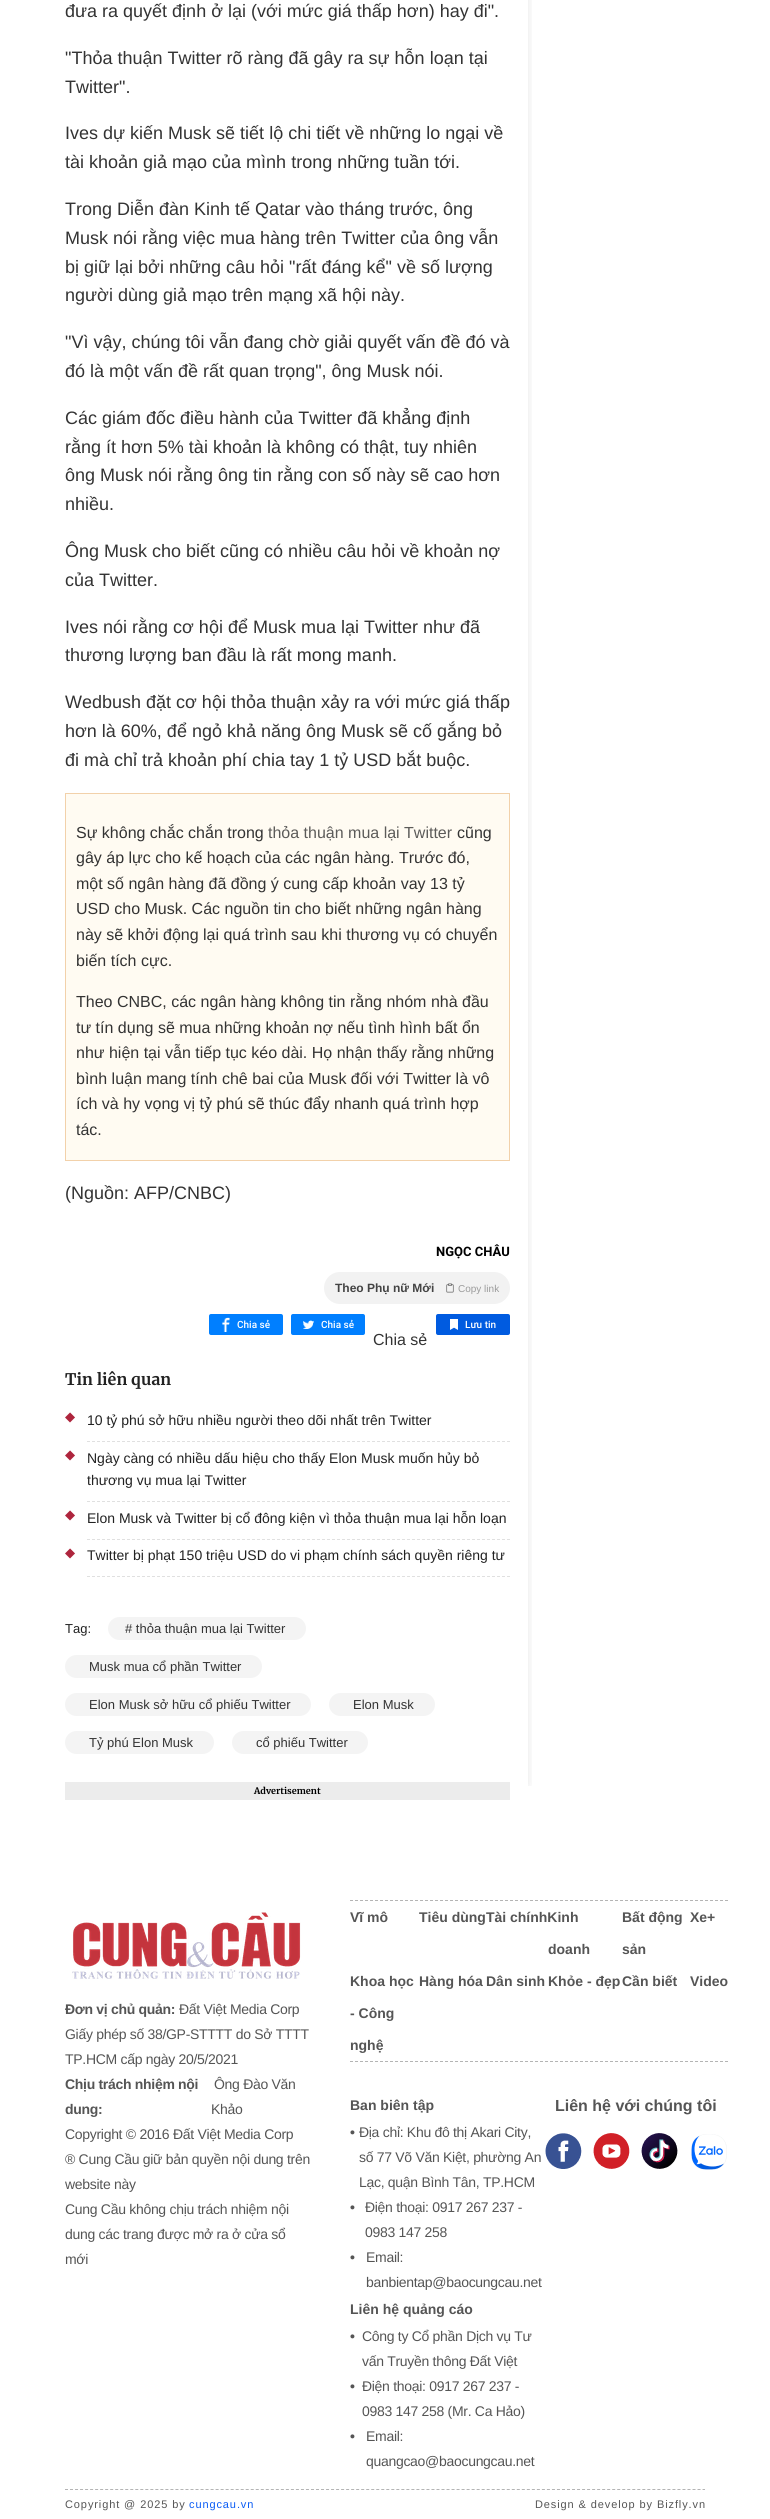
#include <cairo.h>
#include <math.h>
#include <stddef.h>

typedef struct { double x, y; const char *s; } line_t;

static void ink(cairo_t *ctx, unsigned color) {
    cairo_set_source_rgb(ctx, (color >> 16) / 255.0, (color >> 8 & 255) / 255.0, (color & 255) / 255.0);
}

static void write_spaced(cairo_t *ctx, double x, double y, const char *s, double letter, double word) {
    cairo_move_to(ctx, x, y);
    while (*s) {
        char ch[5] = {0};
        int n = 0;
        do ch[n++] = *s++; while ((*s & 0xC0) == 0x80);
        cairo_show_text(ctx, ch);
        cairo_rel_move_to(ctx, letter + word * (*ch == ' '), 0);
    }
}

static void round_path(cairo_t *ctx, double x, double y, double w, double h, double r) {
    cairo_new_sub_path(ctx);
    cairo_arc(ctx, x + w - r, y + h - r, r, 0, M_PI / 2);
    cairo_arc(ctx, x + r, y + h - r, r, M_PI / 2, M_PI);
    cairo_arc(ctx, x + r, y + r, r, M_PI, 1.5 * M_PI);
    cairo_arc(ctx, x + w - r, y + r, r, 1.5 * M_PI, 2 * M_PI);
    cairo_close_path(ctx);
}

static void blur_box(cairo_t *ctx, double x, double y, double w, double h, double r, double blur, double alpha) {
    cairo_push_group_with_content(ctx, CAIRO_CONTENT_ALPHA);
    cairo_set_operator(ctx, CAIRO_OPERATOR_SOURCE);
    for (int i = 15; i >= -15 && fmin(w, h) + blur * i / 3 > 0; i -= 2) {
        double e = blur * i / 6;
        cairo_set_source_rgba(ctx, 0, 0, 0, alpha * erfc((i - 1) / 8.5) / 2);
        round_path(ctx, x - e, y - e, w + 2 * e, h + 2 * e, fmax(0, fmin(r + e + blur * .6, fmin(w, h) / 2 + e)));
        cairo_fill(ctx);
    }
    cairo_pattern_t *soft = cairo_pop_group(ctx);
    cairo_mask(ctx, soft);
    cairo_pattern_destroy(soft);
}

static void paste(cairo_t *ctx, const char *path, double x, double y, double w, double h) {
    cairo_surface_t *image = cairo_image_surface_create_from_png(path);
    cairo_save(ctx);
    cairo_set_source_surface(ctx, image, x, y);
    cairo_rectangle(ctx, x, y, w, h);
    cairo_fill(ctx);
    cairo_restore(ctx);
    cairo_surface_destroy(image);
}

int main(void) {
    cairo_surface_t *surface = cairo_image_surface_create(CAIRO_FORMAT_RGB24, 770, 2519);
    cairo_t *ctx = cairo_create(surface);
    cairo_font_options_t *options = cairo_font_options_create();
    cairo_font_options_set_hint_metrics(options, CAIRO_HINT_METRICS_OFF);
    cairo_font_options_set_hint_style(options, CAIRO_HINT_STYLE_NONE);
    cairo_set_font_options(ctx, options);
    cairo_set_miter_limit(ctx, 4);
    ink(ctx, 0xFFFFFF);
    cairo_paint(ctx);
    cairo_save(ctx);
    cairo_rectangle(ctx, 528, 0, 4, 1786);
    cairo_clip(ctx);
    ink(ctx, 0x000000);
    blur_box(ctx, 95, -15, 433, 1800, 0, 5, 0.1);
    cairo_restore(ctx);
    cairo_select_font_face(ctx, "Liberation Sans", CAIRO_FONT_SLANT_NORMAL, CAIRO_FONT_WEIGHT_NORMAL);
    cairo_set_font_size(ctx, 18);
    ink(ctx, 0x333333);
    {
        static const line_t items[] = {
            {65, 17, "đưa ra quyết định ở lại (với mức giá thấp hơn) hay đi\"."},
            {65, 64, "\"Thỏa thuận Twitter rõ ràng đã gây ra sự hỗn loạn tại"},
            {65, 93, "Twitter\"."},
            {65, 139, "Ives dự kiến Musk sẽ tiết lộ chi tiết về những lo ngại về"},
            {65, 168, "tài khoản giả mạo của mình trong những tuần tới."},
            {65, 215, "Trong Diễn đàn Kinh tế Qatar vào tháng trước, ông"},
            {65, 244, "Musk nói rằng việc mua hàng trên Twitter của ông vẫn"},
            {65, 273, "bị giữ lại bởi những câu hỏi \"rất đáng kể\" về số lượng"},
            {65, 301, "người dùng giả mạo trên mạng xã hội này."},
            {65, 348, "\"Vì vậy, chúng tôi vẫn đang chờ giải quyết vấn đề đó và"},
            {65, 377, "đó là một vấn đề rất quan trọng\", ông Musk nói."},
            {65, 424, "Các giám đốc điều hành của Twitter đã khẳng định"},
            {65, 453, "rằng ít hơn 5% tài khoản là không có thật, tuy nhiên"},
            {65, 481, "ông Musk nói rằng ông tin rằng con số này sẽ cao hơn"},
            {65, 510, "nhiều."},
            {65, 557, "Ông Musk cho biết cũng có nhiều câu hỏi về khoản nợ"},
            {65, 586, "của Twitter."},
            {65, 633, "Ives nói rằng cơ hội để Musk mua lại Twitter như đã"},
            {65, 661, "thương lượng ban đầu là rất mong manh."},
            {65, 708, "Wedbush đặt cơ hội thỏa thuận xảy ra với mức giá thấp"},
            {65, 737, "hơn là 60%, để ngỏ khả năng ông Musk sẽ cố gắng bỏ"},
            {65, 766, "đi mà chỉ trả khoản phí chia tay 1 tỷ USD bắt buộc."},
        };
        for (size_t i = 0; i < sizeof items / sizeof *items; i++) {
            cairo_move_to(ctx, items[i].x, items[i].y);
            cairo_show_text(ctx, items[i].s);
        }
    }
    ink(ctx, 0xFFFBF2);
    cairo_rectangle(ctx, 65.5, 793.5, 444, 367);
    cairo_fill_preserve(ctx);
    ink(ctx, 0xF2D1AA);
    cairo_set_line_width(ctx, 1);
    cairo_stroke(ctx);
    cairo_set_font_size(ctx, 16);
    ink(ctx, 0x333333);
    cairo_move_to(ctx, 76, 838);
    cairo_show_text(ctx, "Sự không chắc chắn trong");
    ink(ctx, 0x5C5B59);
    cairo_move_to(ctx, 268, 838);
    cairo_show_text(ctx, "thỏa thuận mua lại Twitter");
    ink(ctx, 0x333333);
    {
        static const line_t items[] = {
            {457, 838, "cũng"},
            {76, 863, "gây áp lực cho kế hoạch của các ngân hàng. Trước đó,"},
            {76, 889, "một số ngân hàng đã đồng ý cung cấp khoản vay 13 tỷ"},
            {76, 914, "USD cho Musk. Các nguồn tin cho biết những ngân hàng"},
            {76, 940, "này sẽ khởi động lại quá trình sau khi thương vụ có chuyển"},
            {76, 966, "biến tích cực."},
            {76, 1007, "Theo CNBC, các ngân hàng không tin rằng nhóm nhà đầu"},
            {76, 1033, "tư tín dụng sẽ mua những khoản nợ nếu tình hình bất ổn"},
            {76, 1058, "như hiện tại vẫn tiếp tục kéo dài. Họ nhận thấy rằng những"},
            {76, 1084, "bình luận mang tính chê bai của Musk đối với Twitter là vô"},
            {76, 1109, "ích và hy vọng vị tỷ phú sẽ thúc đẩy nhanh quá trình hợp"},
            {76, 1135, "tác."},
        };
        for (size_t i = 0; i < sizeof items / sizeof *items; i++) {
            cairo_move_to(ctx, items[i].x, items[i].y);
            cairo_show_text(ctx, items[i].s);
        }
    }
    cairo_set_font_size(ctx, 18);
    cairo_move_to(ctx, 65, 1199);
    cairo_show_text(ctx, "(Nguồn: AFP/CNBC)");
    cairo_select_font_face(ctx, "Roboto", CAIRO_FONT_SLANT_NORMAL, CAIRO_FONT_WEIGHT_BOLD);
    cairo_set_font_size(ctx, 13);
    ink(ctx, 0x000000);
    cairo_move_to(ctx, 436, 1256);
    cairo_show_text(ctx, "NGỌC CHÂU");
    ink(ctx, 0xF2F2F2);
    round_path(ctx, 324, 1272, 186, 32, 16);
    cairo_fill(ctx);
    cairo_select_font_face(ctx, "Liberation Sans", CAIRO_FONT_SLANT_NORMAL, CAIRO_FONT_WEIGHT_BOLD);
    cairo_set_font_size(ctx, 12);
    ink(ctx, 0x444444);
    cairo_move_to(ctx, 335, 1292);
    cairo_show_text(ctx, "Theo Phụ nữ Mới");
    paste(ctx, "media/1.png", 446, 1283, 8, 10);
    cairo_select_font_face(ctx, "Liberation Sans", CAIRO_FONT_SLANT_NORMAL, CAIRO_FONT_WEIGHT_NORMAL);
    cairo_set_font_size(ctx, 10);
    ink(ctx, 0x9B9B9B);
    cairo_move_to(ctx, 458, 1292);
    cairo_show_text(ctx, "Copy link");
    ink(ctx, 0x007FFF);
    round_path(ctx, 209, 1314, 74, 21, 2);
    cairo_fill(ctx);
    paste(ctx, "media/2.png", 222, 1317, 8, 15);
    cairo_select_font_face(ctx, "Roboto Medium", CAIRO_FONT_SLANT_NORMAL, CAIRO_FONT_WEIGHT_NORMAL);
    ink(ctx, 0xFFFFFF);
    cairo_move_to(ctx, 237, 1328);
    cairo_show_text(ctx, "Chia sẻ");
    ink(ctx, 0x007FFF);
    round_path(ctx, 291, 1314, 74, 21, 2);
    cairo_fill(ctx);
    paste(ctx, "media/3.png", 303, 1320, 11, 9);
    ink(ctx, 0xFFFFFF);
    cairo_move_to(ctx, 321, 1328);
    cairo_show_text(ctx, "Chia sẻ");
    ink(ctx, 0x005BE0);
    round_path(ctx, 436, 1314, 74, 21, 2);
    cairo_fill(ctx);
    paste(ctx, "media/4.png", 450, 1319, 8, 11);
    ink(ctx, 0xFFFFFF);
    cairo_move_to(ctx, 465, 1328);
    cairo_show_text(ctx, "Lưu tin");
    cairo_select_font_face(ctx, "Liberation Sans", CAIRO_FONT_SLANT_NORMAL, CAIRO_FONT_WEIGHT_NORMAL);
    cairo_set_font_size(ctx, 16);
    ink(ctx, 0x333333);
    cairo_move_to(ctx, 373, 1345);
    cairo_show_text(ctx, "Chia sẻ");
    cairo_select_font_face(ctx, "Merriweather", CAIRO_FONT_SLANT_NORMAL, CAIRO_FONT_WEIGHT_BOLD);
    ink(ctx, 0x222222);
    cairo_move_to(ctx, 65, 1385);
    cairo_show_text(ctx, "Tin liên quan");
    paste(ctx, "media/5.png", 65, 1412, 10, 11);
    cairo_new_path(ctx);
    cairo_move_to(ctx, 87, 1441.5);
    cairo_line_to(ctx, 510, 1441.5);
    ink(ctx, 0xE0E0E0);
    cairo_set_dash(ctx, (double[]){3, 2}, 2, 0);
    cairo_stroke(ctx);
    cairo_select_font_face(ctx, "Liberation Sans", CAIRO_FONT_SLANT_NORMAL, CAIRO_FONT_WEIGHT_NORMAL);
    cairo_set_font_size(ctx, 14);
    ink(ctx, 0x222222);
    cairo_move_to(ctx, 87, 1425);
    cairo_show_text(ctx, "10 tỷ phú sở hữu nhiều người theo dõi nhất trên Twitter");
    paste(ctx, "media/5.png", 65, 1450, 10, 11);
    cairo_new_path(ctx);
    cairo_move_to(ctx, 87, 1501.5);
    cairo_line_to(ctx, 510, 1501.5);
    ink(ctx, 0xE0E0E0);
    cairo_stroke(ctx);
    ink(ctx, 0x222222);
    cairo_move_to(ctx, 87, 1463);
    cairo_show_text(ctx, "Ngày càng có nhiều dấu hiệu cho thấy Elon Musk muốn hủy bỏ");
    cairo_move_to(ctx, 87, 1485);
    cairo_show_text(ctx, "thương vụ mua lại Twitter");
    paste(ctx, "media/5.png", 65, 1510, 10, 11);
    cairo_new_path(ctx);
    cairo_move_to(ctx, 87, 1539.5);
    cairo_line_to(ctx, 510, 1539.5);
    ink(ctx, 0xE0E0E0);
    cairo_stroke(ctx);
    ink(ctx, 0x222222);
    cairo_move_to(ctx, 87, 1523);
    cairo_show_text(ctx, "Elon Musk và Twitter bị cổ đông kiện vì thỏa thuận mua lại hỗn loạn");
    paste(ctx, "media/5.png", 65, 1548, 10, 11);
    cairo_new_path(ctx);
    cairo_move_to(ctx, 87, 1576.5);
    cairo_line_to(ctx, 510, 1576.5);
    ink(ctx, 0xE0E0E0);
    cairo_stroke(ctx);
    ink(ctx, 0x222222);
    cairo_move_to(ctx, 87, 1560);
    cairo_show_text(ctx, "Twitter bị phạt 150 triệu USD do vi phạm chính sách quyền riêng tư");
    cairo_set_font_size(ctx, 13);
    cairo_move_to(ctx, 65, 1633);
    cairo_show_text(ctx, "Tag:");
    ink(ctx, 0xF4F4F4);
    round_path(ctx, 108, 1617, 198, 23, 11.5);
    cairo_fill(ctx);
    ink(ctx, 0x333333);
    cairo_move_to(ctx, 125, 1633);
    cairo_show_text(ctx, "# thỏa thuận mua lại Twitter");
    ink(ctx, 0xF4F4F4);
    round_path(ctx, 65, 1655, 197, 23, 11.5);
    cairo_fill(ctx);
    ink(ctx, 0x333333);
    cairo_move_to(ctx, 89, 1671);
    cairo_show_text(ctx, "Musk mua cổ phần Twitter");
    ink(ctx, 0xF4F4F4);
    round_path(ctx, 65, 1693, 246, 23, 11.5);
    cairo_fill(ctx);
    ink(ctx, 0x333333);
    cairo_move_to(ctx, 89, 1709);
    cairo_show_text(ctx, "Elon Musk sở hữu cổ phiếu Twitter");
    ink(ctx, 0xF4F4F4);
    round_path(ctx, 329, 1693, 106, 23, 11.5);
    cairo_fill(ctx);
    ink(ctx, 0x333333);
    cairo_move_to(ctx, 353, 1709);
    cairo_show_text(ctx, "Elon Musk");
    ink(ctx, 0xF4F4F4);
    round_path(ctx, 65, 1731, 149, 23, 11.5);
    cairo_fill(ctx);
    ink(ctx, 0x333333);
    cairo_move_to(ctx, 89, 1747);
    cairo_show_text(ctx, "Tỷ phú Elon Musk");
    ink(ctx, 0xF4F4F4);
    round_path(ctx, 232, 1731, 136, 23, 11.5);
    cairo_fill(ctx);
    ink(ctx, 0x333333);
    cairo_move_to(ctx, 256, 1747);
    cairo_show_text(ctx, "cổ phiếu Twitter");
    ink(ctx, 0xECECEC);
    cairo_rectangle(ctx, 65, 1782, 445, 18);
    cairo_fill(ctx);
    cairo_select_font_face(ctx, "Merriweather", CAIRO_FONT_SLANT_NORMAL, CAIRO_FONT_WEIGHT_BOLD);
    cairo_set_font_size(ctx, 9);
    ink(ctx, 0x000000);
    cairo_move_to(ctx, 254, 1794);
    cairo_show_text(ctx, "Advertisement");
    cairo_new_path(ctx);
    cairo_move_to(ctx, 65, 2489.5);
    cairo_line_to(ctx, 705, 2489.5);
    ink(ctx, 0xB4B4B4);
    cairo_set_dash(ctx, (double[]){3, 2.02}, 2, 0);
    cairo_stroke(ctx);
    paste(ctx, "media/6.png", 72, 1912, 229, 67);
    cairo_select_font_face(ctx, "Liberation Sans", CAIRO_FONT_SLANT_NORMAL, CAIRO_FONT_WEIGHT_BOLD);
    cairo_set_font_size(ctx, 14);
    ink(ctx, 0x555555);
    write_spaced(ctx, 65, 2014, "Đơn vị chủ quản:", -0.3, 0);
    cairo_select_font_face(ctx, "Liberation Sans", CAIRO_FONT_SLANT_NORMAL, CAIRO_FONT_WEIGHT_NORMAL);
    {
        static const line_t items[] = {
            {179, 2014, "Đất Việt Media Corp"},
            {65, 2039, "Giấy phép số 38/GP-STTTT do Sở TTTT"},
            {65, 2064, "TP.HCM cấp ngày 20/5/2021"},
        };
        for (size_t i = 0; i < sizeof items / sizeof *items; i++) {
            write_spaced(ctx, items[i].x, items[i].y, items[i].s, -0.3, 0);
        }
    }
    cairo_select_font_face(ctx, "Liberation Sans", CAIRO_FONT_SLANT_NORMAL, CAIRO_FONT_WEIGHT_BOLD);
    write_spaced(ctx, 65, 2089, "Chịu trách nhiệm nội", -0.3, 0);
    write_spaced(ctx, 65, 2114, "dung:", -0.3, 0);
    cairo_select_font_face(ctx, "Liberation Sans", CAIRO_FONT_SLANT_NORMAL, CAIRO_FONT_WEIGHT_NORMAL);
    {
        static const line_t items[] = {
            {214, 2089, "Ông Đào Văn"},
            {211, 2114, "Khảo"},
            {65, 2139, "Copyright © 2016 Đất Việt Media Corp"},
            {65, 2164, "® Cung Cầu giữ bản quyền nội dung trên"},
            {65, 2189, "website này"},
            {65, 2214, "Cung Cầu không chịu trách nhiệm nội"},
            {65, 2239, "dung các trang được mở ra ở cửa sổ"},
            {65, 2264, "mới"},
        };
        for (size_t i = 0; i < sizeof items / sizeof *items; i++) {
            write_spaced(ctx, items[i].x, items[i].y, items[i].s, -0.3, 0);
        }
    }
    cairo_new_path(ctx);
    cairo_move_to(ctx, 350, 1900.5);
    cairo_line_to(ctx, 728, 1900.5);
    ink(ctx, 0xB4B4B4);
    cairo_set_dash(ctx, (double[]){3, 2}, 2, 0);
    cairo_stroke(ctx);
    cairo_new_path(ctx);
    cairo_move_to(ctx, 350, 2061.5);
    cairo_line_to(ctx, 728, 2061.5);
    cairo_stroke(ctx);
    cairo_select_font_face(ctx, "Liberation Sans", CAIRO_FONT_SLANT_NORMAL, CAIRO_FONT_WEIGHT_BOLD);
    ink(ctx, 0x555555);
    {
        static const line_t items[] = {
            {350, 1922, "Vĩ mô"},
            {419, 1922, "Tiêu dùngTài chínhKinh"},
            {622, 1922, "Bất động"},
            {622, 1954, "sản"},
            {690, 1922, "Xe+"},
            {548, 1954, "doanh"},
            {350, 1986, "Khoa học"},
            {350, 2018, "- Công"},
            {350, 2050, "nghệ"},
            {419, 1986, "Hàng hóa"},
            {486, 1986, "Dân sinh"},
            {548, 1986, "Khỏe - đẹp"},
            {622, 1986, "Cần biết"},
            {690, 1986, "Video"},
            {350, 2110, "Ban biên tập"},
        };
        for (size_t i = 0; i < sizeof items / sizeof *items; i++) {
            cairo_move_to(ctx, items[i].x, items[i].y);
            cairo_show_text(ctx, items[i].s);
        }
    }
    write_spaced(ctx, 350, 2137, "•", -0.3, 0);
    cairo_select_font_face(ctx, "Liberation Sans", CAIRO_FONT_SLANT_NORMAL, CAIRO_FONT_WEIGHT_NORMAL);
    {
        static const line_t items[] = {
            {359, 2137, "Địa chỉ: Khu đô thị Akari City,"},
            {359, 2162, "số 77 Võ Văn Kiệt, phường An"},
            {359, 2187, "Lạc, quận Bình Tân, TP.HCM"},
        };
        for (size_t i = 0; i < sizeof items / sizeof *items; i++) {
            write_spaced(ctx, items[i].x, items[i].y, items[i].s, -0.3, 0);
        }
    }
    cairo_select_font_face(ctx, "Liberation Sans", CAIRO_FONT_SLANT_NORMAL, CAIRO_FONT_WEIGHT_BOLD);
    write_spaced(ctx, 350, 2212, "•", -0.3, 0);
    cairo_select_font_face(ctx, "Liberation Sans", CAIRO_FONT_SLANT_NORMAL, CAIRO_FONT_WEIGHT_NORMAL);
    write_spaced(ctx, 365, 2212, "Điện thoại: 0917 267 237 -", -0.3, 0);
    write_spaced(ctx, 365, 2237, "0983 147 258", -0.3, 0);
    cairo_select_font_face(ctx, "Liberation Sans", CAIRO_FONT_SLANT_NORMAL, CAIRO_FONT_WEIGHT_BOLD);
    write_spaced(ctx, 350, 2262, "•", -0.3, 0);
    cairo_select_font_face(ctx, "Liberation Sans", CAIRO_FONT_SLANT_NORMAL, CAIRO_FONT_WEIGHT_NORMAL);
    write_spaced(ctx, 366, 2262, "Email:", -0.3, 0);
    write_spaced(ctx, 366, 2287, "banbientap@baocungcau.net", -0.3, 0);
    cairo_select_font_face(ctx, "Liberation Sans", CAIRO_FONT_SLANT_NORMAL, CAIRO_FONT_WEIGHT_BOLD);
    cairo_move_to(ctx, 350, 2314);
    cairo_show_text(ctx, "Liên hệ quảng cáo");
    write_spaced(ctx, 350, 2341, "•", -0.3, 0);
    cairo_select_font_face(ctx, "Liberation Sans", CAIRO_FONT_SLANT_NORMAL, CAIRO_FONT_WEIGHT_NORMAL);
    write_spaced(ctx, 362, 2341, "Công ty Cổ phần Dịch vụ Tư", -0.3, 0);
    write_spaced(ctx, 362, 2366, "vấn Truyền thông Đất Việt", -0.3, 0);
    cairo_select_font_face(ctx, "Liberation Sans", CAIRO_FONT_SLANT_NORMAL, CAIRO_FONT_WEIGHT_BOLD);
    write_spaced(ctx, 350, 2391, "•", -0.3, 0);
    cairo_select_font_face(ctx, "Liberation Sans", CAIRO_FONT_SLANT_NORMAL, CAIRO_FONT_WEIGHT_NORMAL);
    write_spaced(ctx, 362, 2391, "Điện thoại: 0917 267 237 -", -0.3, 0);
    write_spaced(ctx, 362, 2416, "0983 147 258 (Mr. Ca Hảo)", -0.3, 0);
    cairo_select_font_face(ctx, "Liberation Sans", CAIRO_FONT_SLANT_NORMAL, CAIRO_FONT_WEIGHT_BOLD);
    write_spaced(ctx, 350, 2441, "•", -0.3, 0);
    cairo_select_font_face(ctx, "Liberation Sans", CAIRO_FONT_SLANT_NORMAL, CAIRO_FONT_WEIGHT_NORMAL);
    write_spaced(ctx, 366, 2441, "Email:", -0.3, 0);
    write_spaced(ctx, 366, 2466, "quangcao@baocungcau.net", -0.3, 0);
    cairo_select_font_face(ctx, "Liberation Sans", CAIRO_FONT_SLANT_NORMAL, CAIRO_FONT_WEIGHT_BOLD);
    cairo_set_font_size(ctx, 16);
    cairo_move_to(ctx, 555, 2111);
    cairo_show_text(ctx, "Liên hệ với chúng tôi");
    paste(ctx, "media/7.png", 545, 2133, 37, 36);
    paste(ctx, "media/8.png", 593, 2133, 37, 36);
    paste(ctx, "media/9.png", 641, 2133, 37, 36);
    paste(ctx, "media/10.png", 691, 2134, 36, 36);
    cairo_select_font_face(ctx, "Liberation Sans", CAIRO_FONT_SLANT_NORMAL, CAIRO_FONT_WEIGHT_NORMAL);
    cairo_set_font_size(ctx, 11);
    write_spaced(ctx, 65, 2508, "Copyright @ 2025 by", 0.9, 0);
    ink(ctx, 0x0A5CF5);
    write_spaced(ctx, 189, 2508, "cungcau.vn", 0.9, 0);
    ink(ctx, 0x555555);
    write_spaced(ctx, 535, 2508, "Design & develop by Bizfly.vn", 0.9, 0);
    cairo_surface_write_to_png(surface, "image.png");
    cairo_font_options_destroy(options);
    cairo_destroy(ctx);
    cairo_surface_destroy(surface);
    return 0;
}
